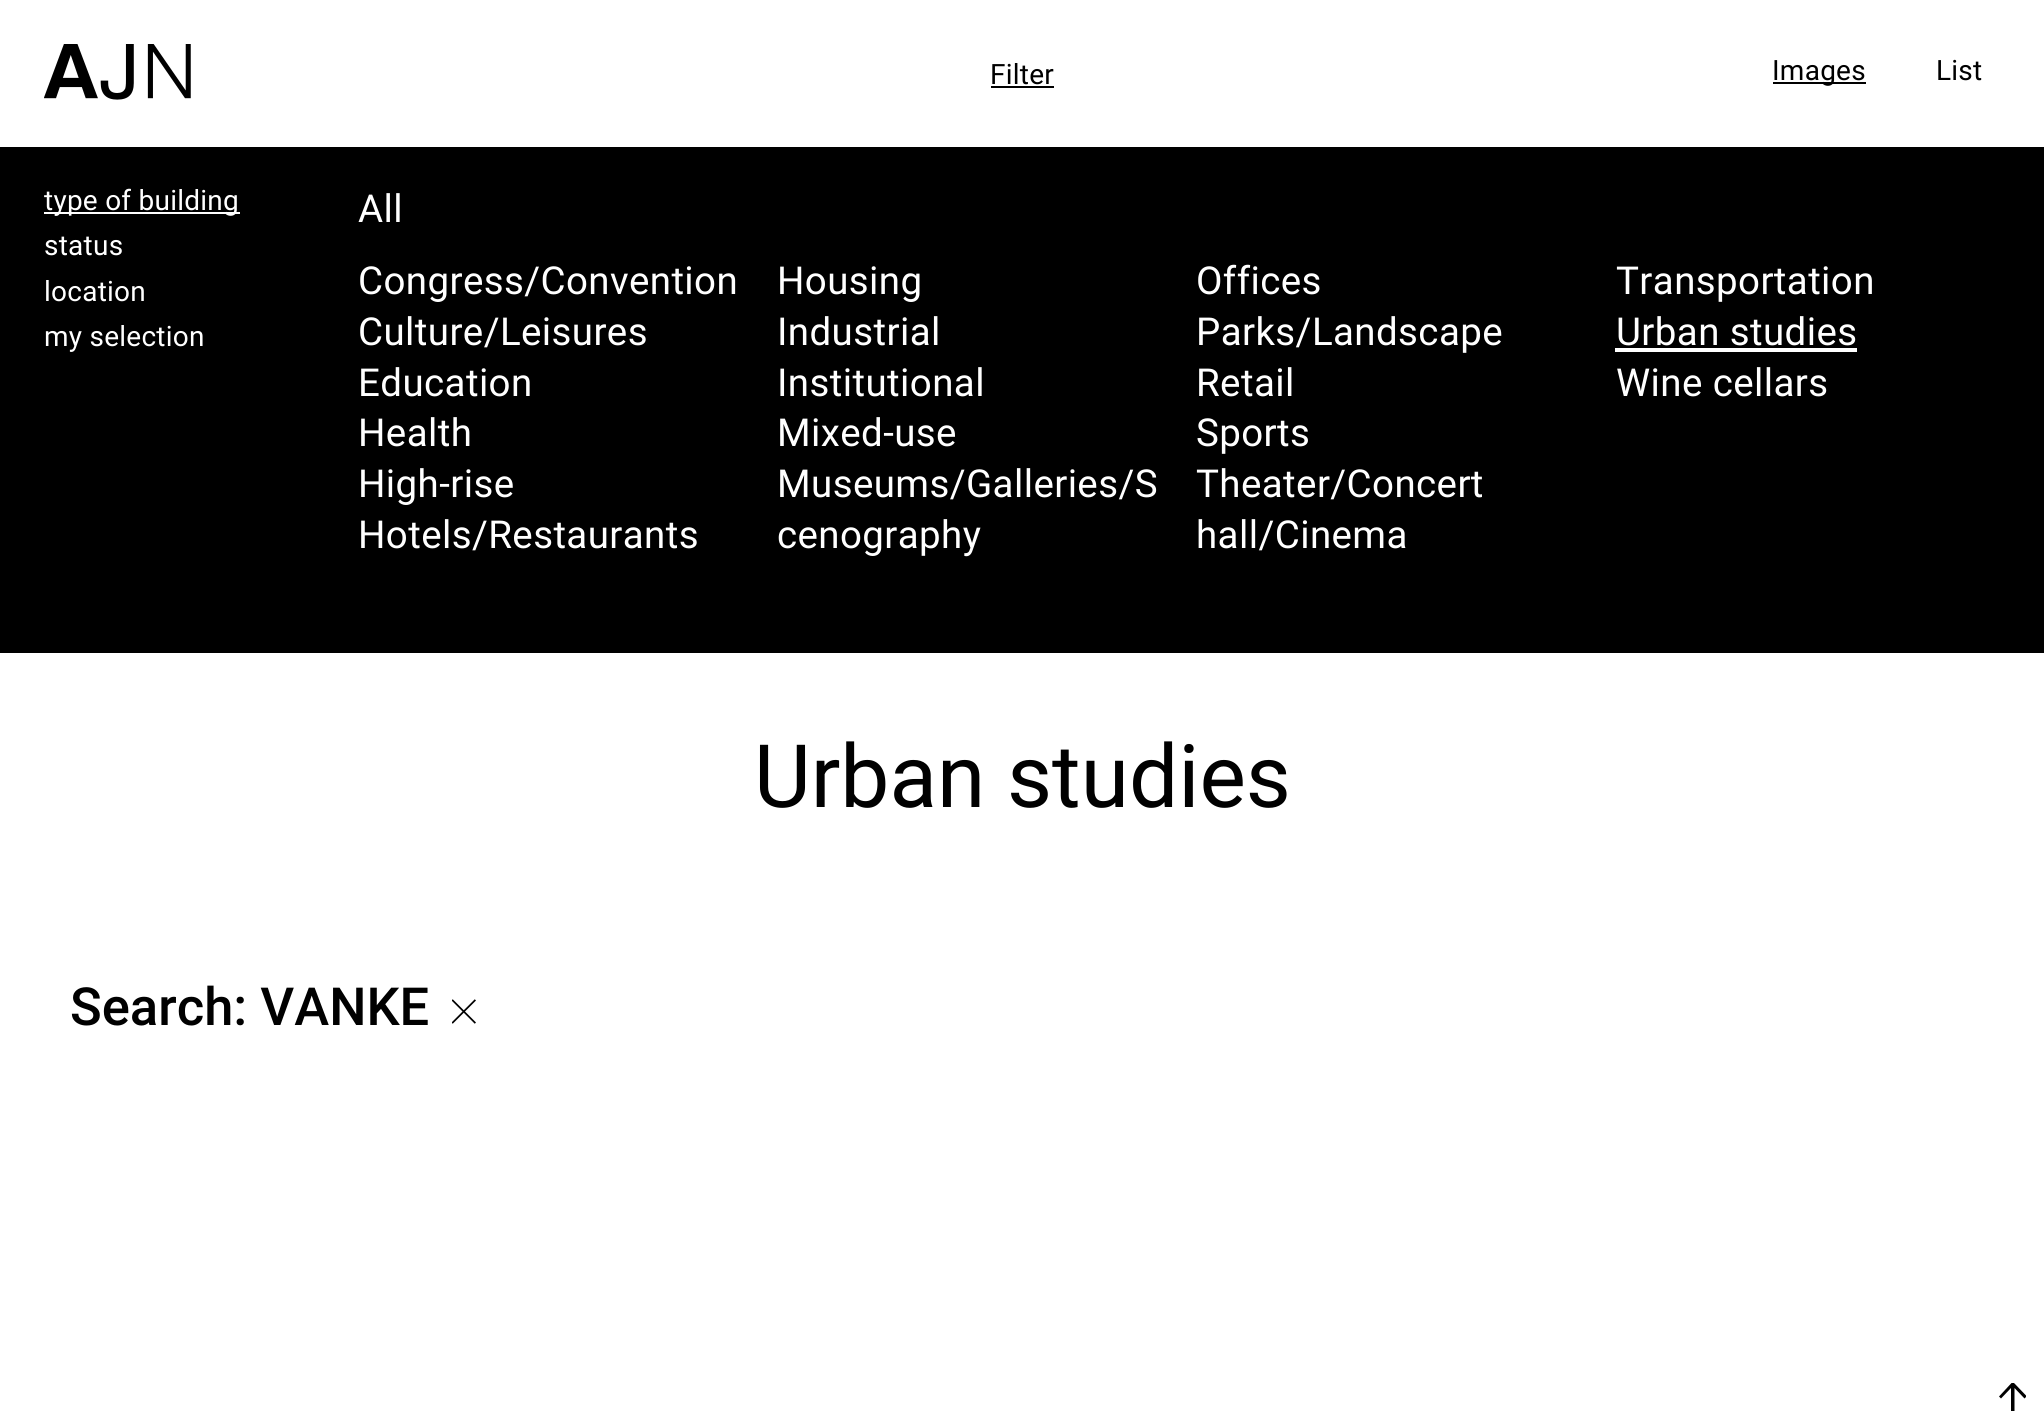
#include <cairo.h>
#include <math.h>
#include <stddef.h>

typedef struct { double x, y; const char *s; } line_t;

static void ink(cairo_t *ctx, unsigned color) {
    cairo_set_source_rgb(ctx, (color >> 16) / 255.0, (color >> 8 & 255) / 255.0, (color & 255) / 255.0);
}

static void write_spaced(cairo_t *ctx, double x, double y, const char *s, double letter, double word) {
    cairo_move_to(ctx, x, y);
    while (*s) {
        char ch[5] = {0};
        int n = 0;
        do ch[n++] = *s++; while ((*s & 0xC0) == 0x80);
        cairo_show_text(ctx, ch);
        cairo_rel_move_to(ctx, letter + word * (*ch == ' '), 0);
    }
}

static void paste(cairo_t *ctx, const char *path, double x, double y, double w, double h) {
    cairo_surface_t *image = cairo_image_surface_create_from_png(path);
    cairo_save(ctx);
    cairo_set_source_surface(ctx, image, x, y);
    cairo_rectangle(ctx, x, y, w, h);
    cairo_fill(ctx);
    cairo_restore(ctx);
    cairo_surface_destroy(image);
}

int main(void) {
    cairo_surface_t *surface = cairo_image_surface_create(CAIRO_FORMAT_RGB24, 2044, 1418);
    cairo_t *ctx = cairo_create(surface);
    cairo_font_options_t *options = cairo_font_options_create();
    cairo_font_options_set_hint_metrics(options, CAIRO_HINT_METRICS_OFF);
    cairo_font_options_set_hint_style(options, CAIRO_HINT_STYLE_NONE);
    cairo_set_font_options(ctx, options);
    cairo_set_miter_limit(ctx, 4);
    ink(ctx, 0xFFFFFF);
    cairo_paint(ctx);
    paste(ctx, "media/1.png", 44, 44, 147, 56);
    cairo_select_font_face(ctx, "Roboto", CAIRO_FONT_SLANT_NORMAL, CAIRO_FONT_WEIGHT_NORMAL);
    cairo_set_font_size(ctx, 28);
    ink(ctx, 0x000000);
    write_spaced(ctx, 990, 84, "Filter", 0.25, 0);
    cairo_rectangle(ctx, 991, 86, 63, 2);
    cairo_fill(ctx);
    cairo_rectangle(ctx, 1773, 82, 93, 2);
    cairo_fill(ctx);
    write_spaced(ctx, 1772, 80, "Images", 0.25, 0);
    write_spaced(ctx, 1936, 80, "List", 0.25, 0);
    cairo_rectangle(ctx, 0, 147, 2044, 506);
    cairo_fill(ctx);
    ink(ctx, 0xFFFFFF);
    cairo_rectangle(ctx, 44, 212, 196, 2);
    cairo_fill(ctx);
    {
        static const line_t items[] = {
            {44, 210, "type of building"},
            {44, 255, "status"},
            {44, 301, "location"},
            {44, 346, "my selection"},
        };
        for (size_t i = 0; i < sizeof items / sizeof *items; i++) {
            write_spaced(ctx, items[i].x, items[i].y, items[i].s, 0.25, 0);
        }
    }
    cairo_set_font_size(ctx, 38.5);
    {
        static const line_t items[] = {
            {358, 222, "All"},
            {358, 294, "Congress/Convention"},
            {777, 294, "Housing"},
            {1196, 294, "Offices"},
            {1616, 294, "Transportation"},
            {358, 345, "Culture/Leisures"},
            {777, 345, "Industrial"},
            {1196, 345, "Parks/Landscape"},
            {1616, 345, "Urban studies"},
        };
        for (size_t i = 0; i < sizeof items / sizeof *items; i++) {
            write_spaced(ctx, items[i].x, items[i].y, items[i].s, 0.4, 0);
        }
    }
    cairo_rectangle(ctx, 1615, 348, 242, 4);
    cairo_fill(ctx);
    {
        static const line_t items[] = {
            {358, 396, "Education"},
            {777, 396, "Institutional"},
            {1196, 396, "Retail"},
            {1616, 396, "Wine cellars"},
            {358, 446, "Health"},
            {777, 446, "Mixed-use"},
            {1196, 446, "Sports"},
            {358, 497, "High-rise"},
            {777, 497, "Museums/Galleries/S"},
            {777, 548, "cenography"},
            {1196, 497, "Theater/Concert"},
            {1196, 548, "hall/Cinema"},
            {358, 548, "Hotels/Restaurants"},
        };
        for (size_t i = 0; i < sizeof items / sizeof *items; i++) {
            write_spaced(ctx, items[i].x, items[i].y, items[i].s, 0.4, 0);
        }
    }
    cairo_set_font_size(ctx, 87.5);
    ink(ctx, 0x000000);
    cairo_move_to(ctx, 754, 807);
    cairo_show_text(ctx, "Urban studies");
    cairo_select_font_face(ctx, "Roboto Medium", CAIRO_FONT_SLANT_NORMAL, CAIRO_FONT_WEIGHT_NORMAL);
    cairo_set_font_size(ctx, 52.5);
    cairo_move_to(ctx, 70, 1025);
    cairo_show_text(ctx, "Search: VANKE");
    paste(ctx, "media/2.png", 452, 999, 24, 25);
    cairo_new_path(ctx);
    cairo_move_to(ctx, 1999, 1396.5);
    cairo_line_to(ctx, 2011.5, 1383);
    cairo_line_to(ctx, 2014, 1383);
    cairo_line_to(ctx, 2026, 1395.5);
    cairo_line_to(ctx, 2026, 1397);
    cairo_line_to(ctx, 2024.5, 1398.5);
    cairo_line_to(ctx, 2014.5, 1388);
    cairo_line_to(ctx, 2014.5, 1411);
    cairo_line_to(ctx, 2011, 1411);
    cairo_line_to(ctx, 2011, 1388);
    cairo_line_to(ctx, 2001, 1398.5);
    cairo_close_path(ctx);
    cairo_fill(ctx);
    cairo_surface_write_to_png(surface, "image.png");
    cairo_font_options_destroy(options);
    cairo_destroy(ctx);
    cairo_surface_destroy(surface);
    return 0;
}
